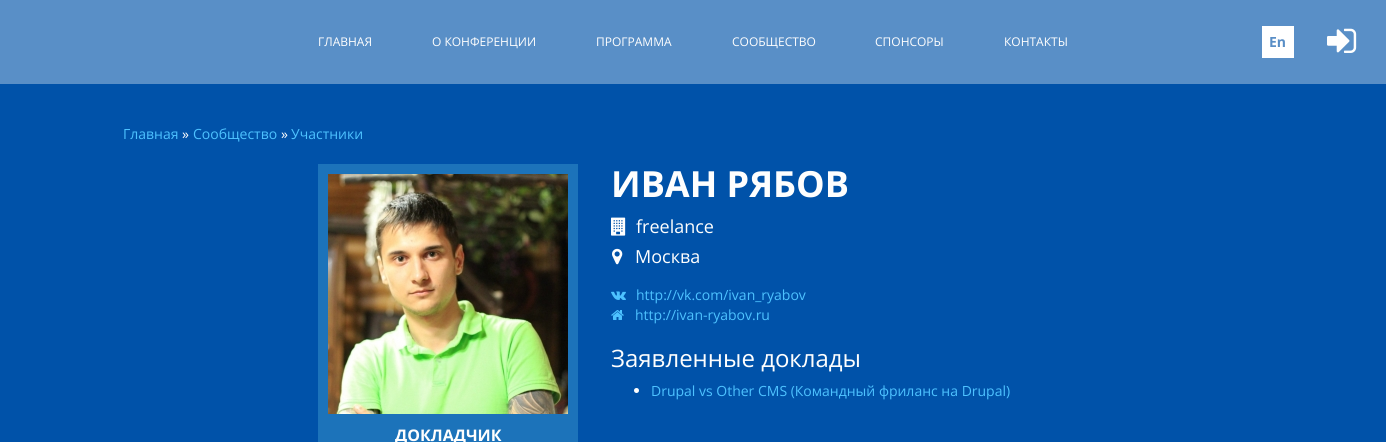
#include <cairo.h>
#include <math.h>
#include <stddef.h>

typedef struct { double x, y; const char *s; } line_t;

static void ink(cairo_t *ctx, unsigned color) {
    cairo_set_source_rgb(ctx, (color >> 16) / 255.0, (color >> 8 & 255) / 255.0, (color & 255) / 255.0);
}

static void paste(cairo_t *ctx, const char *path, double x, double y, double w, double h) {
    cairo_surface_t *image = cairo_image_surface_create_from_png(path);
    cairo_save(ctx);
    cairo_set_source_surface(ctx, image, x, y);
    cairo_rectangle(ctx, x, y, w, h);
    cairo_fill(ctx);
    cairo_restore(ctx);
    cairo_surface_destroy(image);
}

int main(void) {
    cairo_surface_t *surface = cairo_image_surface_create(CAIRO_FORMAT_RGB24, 1386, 442);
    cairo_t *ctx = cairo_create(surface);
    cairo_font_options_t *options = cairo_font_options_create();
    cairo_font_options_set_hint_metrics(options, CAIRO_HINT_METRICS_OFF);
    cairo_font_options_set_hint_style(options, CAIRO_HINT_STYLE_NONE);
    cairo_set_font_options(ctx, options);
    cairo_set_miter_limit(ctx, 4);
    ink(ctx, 0x0052A9);
    cairo_paint(ctx);
    ink(ctx, 0x598FC7);
    cairo_rectangle(ctx, 0, 0, 1386, 84);
    cairo_fill(ctx);
    cairo_select_font_face(ctx, "Open Sans", CAIRO_FONT_SLANT_NORMAL, CAIRO_FONT_WEIGHT_NORMAL);
    cairo_set_font_size(ctx, 12);
    ink(ctx, 0xFEFEFE);
    {
        static const line_t items[] = {
            {318, 46, "ГЛАВНАЯ"},
            {432, 46, "О КОНФЕРЕНЦИИ"},
            {596, 46, "ПРОГРАММА"},
            {732, 46, "СООБЩЕСТВО"},
            {875, 46, "СПОНСОРЫ"},
            {1004, 46, "КОНТАКТЫ"},
        };
        for (size_t i = 0; i < sizeof items / sizeof *items; i++) {
            cairo_move_to(ctx, items[i].x, items[i].y);
            cairo_show_text(ctx, items[i].s);
        }
    }
    ink(ctx, 0xFFFFFF);
    cairo_rectangle(ctx, 1262, 26, 32, 32);
    cairo_fill(ctx);
    cairo_select_font_face(ctx, "Open Sans", CAIRO_FONT_SLANT_NORMAL, CAIRO_FONT_WEIGHT_BOLD);
    cairo_set_font_size(ctx, 14);
    ink(ctx, 0x598EC6);
    cairo_move_to(ctx, 1269, 47);
    cairo_show_text(ctx, "En");
    paste(ctx, "media/1.png", 1327, 28, 30, 25);
    cairo_select_font_face(ctx, "Open Sans", CAIRO_FONT_SLANT_NORMAL, CAIRO_FONT_WEIGHT_NORMAL);
    ink(ctx, 0x4DC2FF);
    cairo_move_to(ctx, 123, 139);
    cairo_show_text(ctx, "Главная");
    ink(ctx, 0xFEFEFE);
    cairo_move_to(ctx, 182, 139);
    cairo_show_text(ctx, "»");
    ink(ctx, 0x4DC2FF);
    cairo_move_to(ctx, 193, 139);
    cairo_show_text(ctx, "Сообщество");
    ink(ctx, 0xFEFEFE);
    cairo_move_to(ctx, 281, 139);
    cairo_show_text(ctx, "»");
    ink(ctx, 0x4DC2FF);
    cairo_move_to(ctx, 291, 139);
    cairo_show_text(ctx, "Участники");
    cairo_select_font_face(ctx, "Open Sans", CAIRO_FONT_SLANT_NORMAL, CAIRO_FONT_WEIGHT_BOLD);
    cairo_set_font_size(ctx, 36);
    ink(ctx, 0xFEFEFE);
    cairo_move_to(ctx, 611, 197);
    cairo_show_text(ctx, "ИВАН РЯБОВ");
    paste(ctx, "media/2.png", 611, 217, 15, 19);
    cairo_select_font_face(ctx, "Open Sans", CAIRO_FONT_SLANT_NORMAL, CAIRO_FONT_WEIGHT_NORMAL);
    cairo_set_font_size(ctx, 18);
    cairo_move_to(ctx, 636, 233);
    cairo_show_text(ctx, "freelance");
    paste(ctx, "media/3.png", 612, 248, 11, 17);
    cairo_move_to(ctx, 635, 263);
    cairo_show_text(ctx, "Москва");
    paste(ctx, "media/4.png", 611, 291, 15, 9);
    cairo_set_font_size(ctx, 14);
    ink(ctx, 0x4DC2FF);
    cairo_move_to(ctx, 636, 300);
    cairo_show_text(ctx, "http://vk.com/ivan_ryabov");
    paste(ctx, "media/5.png", 611, 310, 13, 10);
    cairo_move_to(ctx, 635, 320);
    cairo_show_text(ctx, "http://ivan-ryabov.ru");
    cairo_set_font_size(ctx, 24);
    ink(ctx, 0xFEFEFE);
    cairo_move_to(ctx, 611, 367);
    cairo_show_text(ctx, "Заявленные доклады");
    cairo_new_path(ctx);
    cairo_arc(ctx, 636.5, 390.5, 2.5, 0, 2 * M_PI);
    cairo_fill(ctx);
    cairo_set_font_size(ctx, 14);
    ink(ctx, 0x4DC2FF);
    cairo_move_to(ctx, 651, 396);
    cairo_show_text(ctx, "Drupal vs Other CMS (Командный фриланс на Drupal)");
    ink(ctx, 0x1C73BA);
    cairo_rectangle(ctx, 318, 164, 260, 278);
    cairo_fill(ctx);
    paste(ctx, "media/6.png", 328, 174, 240, 240);
    cairo_select_font_face(ctx, "Open Sans", CAIRO_FONT_SLANT_NORMAL, CAIRO_FONT_WEIGHT_BOLD);
    cairo_set_font_size(ctx, 16);
    ink(ctx, 0xFEFEFE);
    cairo_move_to(ctx, 395, 441);
    cairo_show_text(ctx, "ДОКЛАДЧИК");
    cairo_surface_write_to_png(surface, "image.png");
    cairo_font_options_destroy(options);
    cairo_destroy(ctx);
    cairo_surface_destroy(surface);
    return 0;
}
